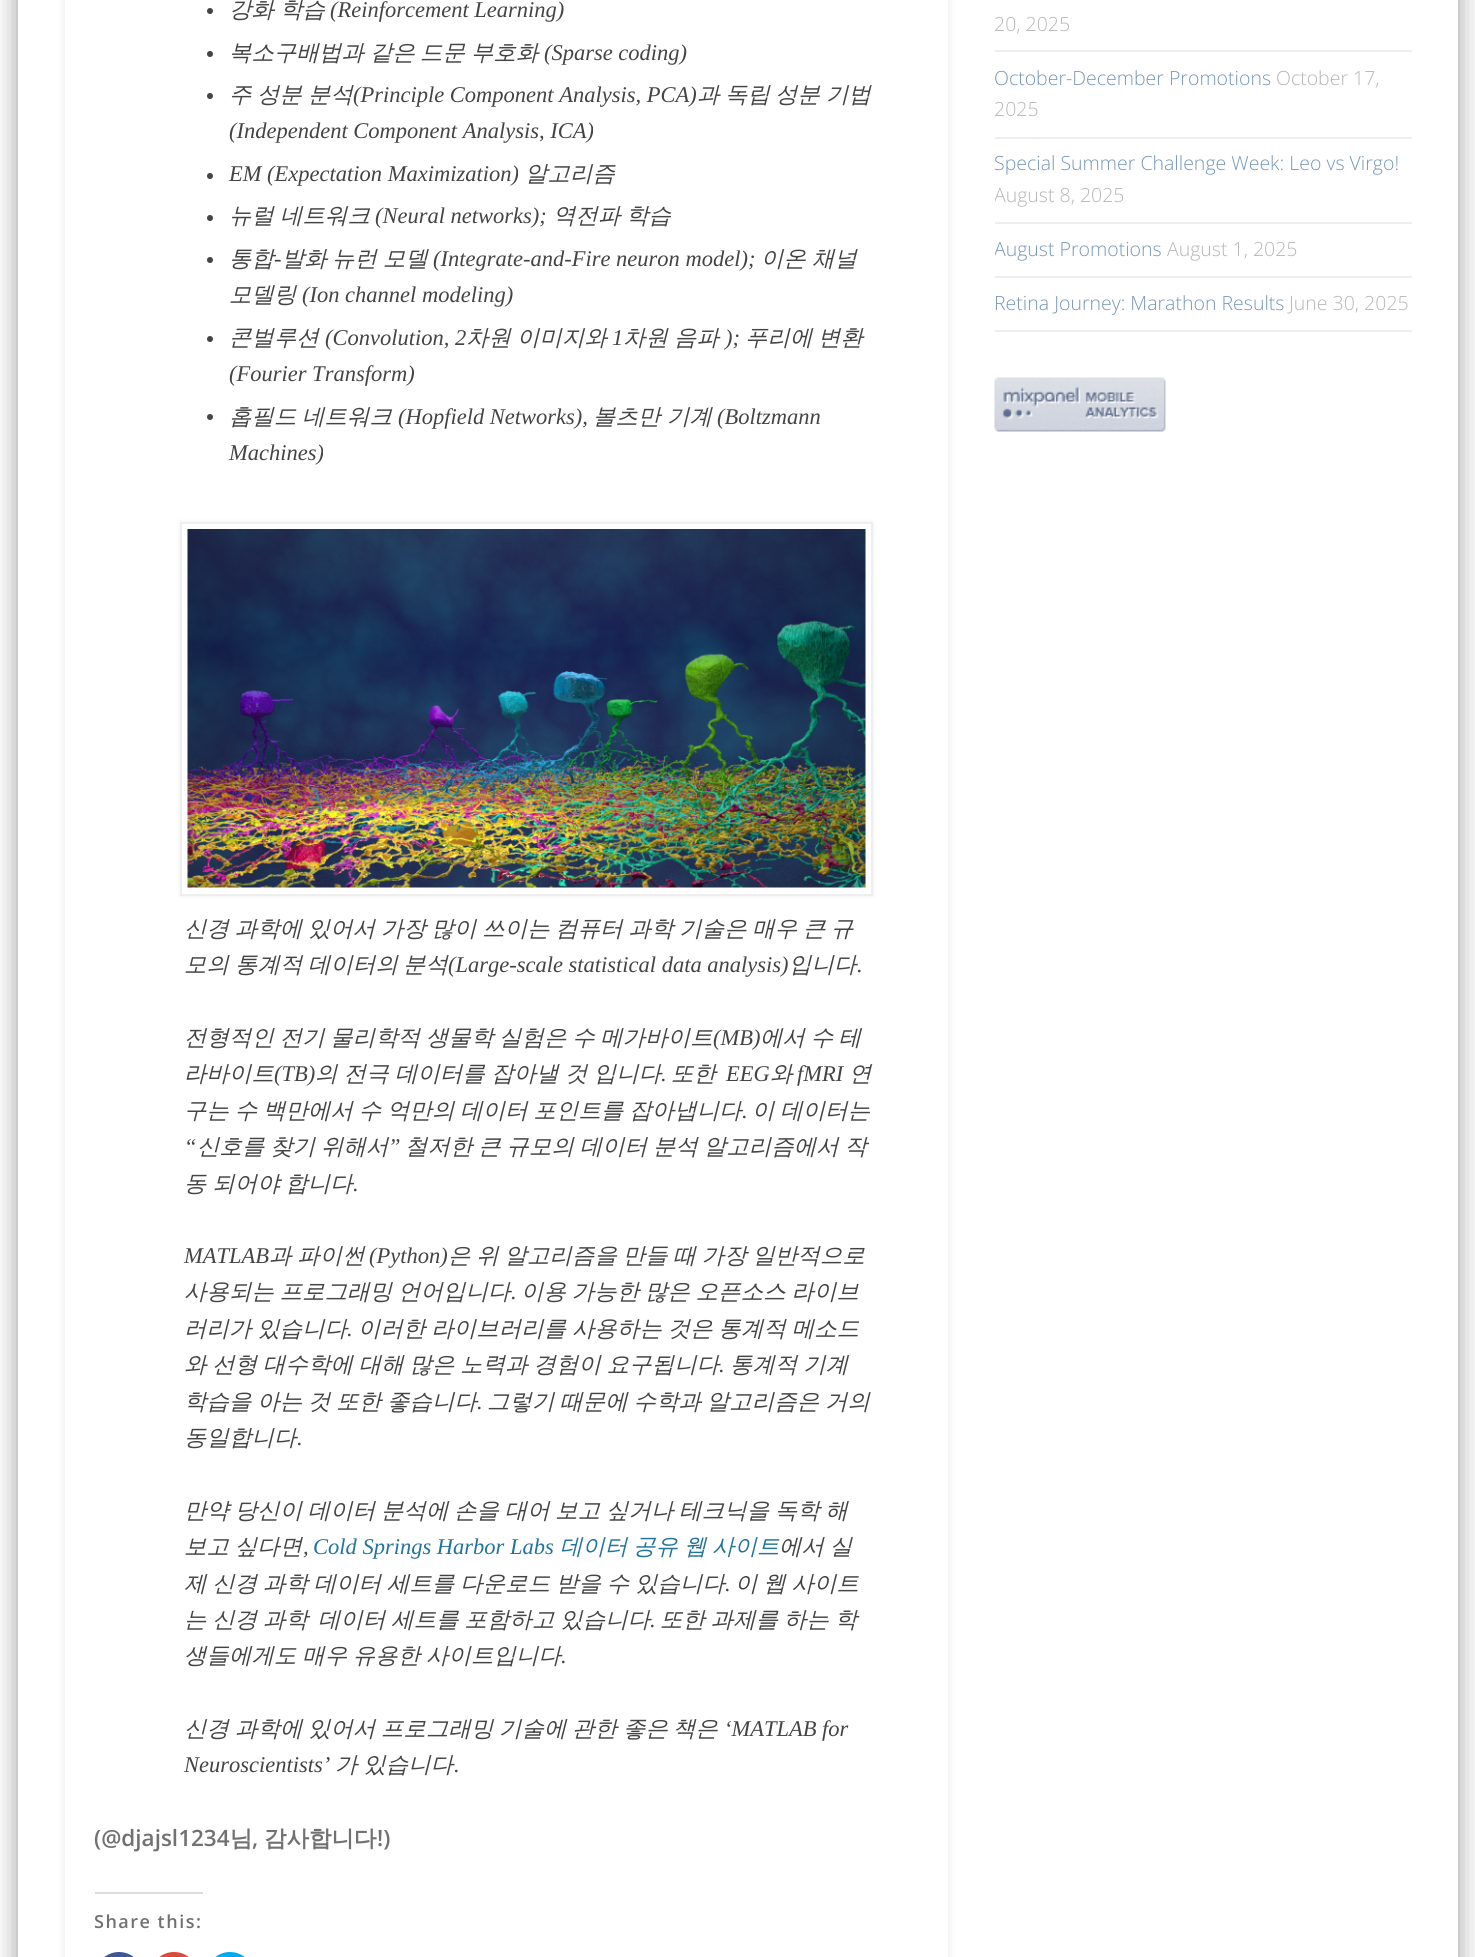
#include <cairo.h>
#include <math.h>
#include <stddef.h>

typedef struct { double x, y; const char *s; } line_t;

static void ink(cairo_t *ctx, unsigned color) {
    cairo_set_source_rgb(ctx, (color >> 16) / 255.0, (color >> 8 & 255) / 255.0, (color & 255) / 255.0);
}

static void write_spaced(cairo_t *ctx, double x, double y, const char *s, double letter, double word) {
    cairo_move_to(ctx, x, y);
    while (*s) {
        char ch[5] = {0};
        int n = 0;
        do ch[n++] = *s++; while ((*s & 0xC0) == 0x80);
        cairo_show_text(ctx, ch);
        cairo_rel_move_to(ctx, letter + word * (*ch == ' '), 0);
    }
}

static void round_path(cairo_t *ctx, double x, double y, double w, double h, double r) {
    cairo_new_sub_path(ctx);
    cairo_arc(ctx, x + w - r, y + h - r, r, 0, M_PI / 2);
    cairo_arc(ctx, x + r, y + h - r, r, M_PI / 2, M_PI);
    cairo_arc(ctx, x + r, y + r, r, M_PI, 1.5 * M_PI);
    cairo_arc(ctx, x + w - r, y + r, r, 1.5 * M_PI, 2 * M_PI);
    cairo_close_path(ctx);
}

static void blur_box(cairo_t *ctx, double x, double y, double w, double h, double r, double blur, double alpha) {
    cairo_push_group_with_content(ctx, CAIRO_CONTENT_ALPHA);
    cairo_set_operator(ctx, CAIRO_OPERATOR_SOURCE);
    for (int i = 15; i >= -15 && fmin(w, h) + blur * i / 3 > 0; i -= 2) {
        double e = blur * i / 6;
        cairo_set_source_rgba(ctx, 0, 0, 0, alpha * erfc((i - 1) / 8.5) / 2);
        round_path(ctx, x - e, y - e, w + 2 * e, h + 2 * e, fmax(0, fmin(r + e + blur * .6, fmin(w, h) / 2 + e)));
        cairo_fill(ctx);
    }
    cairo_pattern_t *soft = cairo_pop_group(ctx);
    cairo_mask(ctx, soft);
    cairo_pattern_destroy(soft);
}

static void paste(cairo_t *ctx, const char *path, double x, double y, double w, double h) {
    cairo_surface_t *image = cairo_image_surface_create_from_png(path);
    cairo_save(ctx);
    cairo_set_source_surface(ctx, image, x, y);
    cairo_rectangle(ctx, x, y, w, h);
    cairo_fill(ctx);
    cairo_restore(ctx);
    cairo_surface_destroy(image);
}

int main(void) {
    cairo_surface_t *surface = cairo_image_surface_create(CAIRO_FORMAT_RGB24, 1475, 1957);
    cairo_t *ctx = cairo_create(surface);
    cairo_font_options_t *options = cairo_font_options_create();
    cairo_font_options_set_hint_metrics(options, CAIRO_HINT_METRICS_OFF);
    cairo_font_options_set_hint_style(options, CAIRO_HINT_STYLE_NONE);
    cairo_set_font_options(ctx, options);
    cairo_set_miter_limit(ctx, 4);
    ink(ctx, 0xFFFFFF);
    cairo_paint(ctx);
    cairo_save(ctx);
    cairo_set_fill_rule(ctx, CAIRO_FILL_RULE_EVEN_ODD);
    cairo_new_path(ctx);
    cairo_move_to(ctx, 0, 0);
    cairo_line_to(ctx, 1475, 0);
    cairo_line_to(ctx, 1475, 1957);
    cairo_line_to(ctx, 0, 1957);
    cairo_close_path(ctx);
    cairo_move_to(ctx, 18, -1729);
    cairo_line_to(ctx, 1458, -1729);
    cairo_line_to(ctx, 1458, 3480);
    cairo_line_to(ctx, 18, 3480);
    cairo_close_path(ctx);
    cairo_clip(ctx);
    ink(ctx, 0x000000);
    blur_box(ctx, 18, -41, 1440, 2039, 0, 13.5, 0.4);
    cairo_restore(ctx);
    cairo_save(ctx);
    cairo_set_fill_rule(ctx, CAIRO_FILL_RULE_EVEN_ODD);
    cairo_new_path(ctx);
    cairo_move_to(ctx, 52, 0);
    cairo_line_to(ctx, 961, 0);
    cairo_line_to(ctx, 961, 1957);
    cairo_line_to(ctx, 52, 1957);
    cairo_close_path(ctx);
    cairo_move_to(ctx, 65, -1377);
    cairo_line_to(ctx, 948, -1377);
    cairo_line_to(ctx, 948, 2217);
    cairo_line_to(ctx, 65, 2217);
    cairo_close_path(ctx);
    cairo_clip(ctx);
    ink(ctx, 0x000000);
    blur_box(ctx, 65, -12, 883, 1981, 0, 4, 0.1);
    cairo_restore(ctx);
    ink(ctx, 0x444444);
    cairo_arc(ctx, 210, 11, 3, 0, 2 * M_PI);
    cairo_fill(ctx);
    cairo_select_font_face(ctx, "WenQuanYi Zen Hei Medium", CAIRO_FONT_SLANT_ITALIC, CAIRO_FONT_WEIGHT_NORMAL);
    cairo_set_font_size(ctx, 22.5);
    cairo_move_to(ctx, 229, 17);
    cairo_show_text(ctx, "강화");
    cairo_move_to(ctx, 280, 17);
    cairo_show_text(ctx, "학습");
    cairo_select_font_face(ctx, "Liberation Serif", CAIRO_FONT_SLANT_ITALIC, CAIRO_FONT_WEIGHT_NORMAL);
    cairo_move_to(ctx, 330, 17);
    cairo_show_text(ctx, "(Reinforcement Learning)");
    cairo_new_path(ctx);
    cairo_arc(ctx, 210, 54, 3, 0, 2 * M_PI);
    cairo_fill(ctx);
    cairo_select_font_face(ctx, "WenQuanYi Zen Hei Medium", CAIRO_FONT_SLANT_ITALIC, CAIRO_FONT_WEIGHT_NORMAL);
    {
        static const line_t items[] = {
            {229, 60, "복소구배법과"},
            {370, 60, "같은"},
            {420, 60, "드문"},
            {471, 60, "부호화"},
        };
        for (size_t i = 0; i < sizeof items / sizeof *items; i++) {
            cairo_move_to(ctx, items[i].x, items[i].y);
            cairo_show_text(ctx, items[i].s);
        }
    }
    cairo_select_font_face(ctx, "Liberation Serif", CAIRO_FONT_SLANT_ITALIC, CAIRO_FONT_WEIGHT_NORMAL);
    cairo_move_to(ctx, 544, 60);
    cairo_show_text(ctx, "(Sparse coding)");
    cairo_new_path(ctx);
    cairo_arc(ctx, 210, 96, 3, 0, 2 * M_PI);
    cairo_fill(ctx);
    cairo_select_font_face(ctx, "WenQuanYi Zen Hei Medium", CAIRO_FONT_SLANT_ITALIC, CAIRO_FONT_WEIGHT_NORMAL);
    {
        static const line_t items[] = {
            {229, 102, "주"},
            {257, 102, "성분"},
            {308, 102, "분석"},
        };
        for (size_t i = 0; i < sizeof items / sizeof *items; i++) {
            cairo_move_to(ctx, items[i].x, items[i].y);
            cairo_show_text(ctx, items[i].s);
        }
    }
    cairo_select_font_face(ctx, "Liberation Serif", CAIRO_FONT_SLANT_ITALIC, CAIRO_FONT_WEIGHT_NORMAL);
    cairo_move_to(ctx, 353, 102);
    cairo_show_text(ctx, "(Principle Component Analysis, PCA)");
    cairo_select_font_face(ctx, "WenQuanYi Zen Hei Medium", CAIRO_FONT_SLANT_ITALIC, CAIRO_FONT_WEIGHT_NORMAL);
    {
        static const line_t items[] = {
            {697, 102, "과"},
            {725, 102, "독립"},
            {775, 102, "성분"},
            {826, 102, "기법"},
        };
        for (size_t i = 0; i < sizeof items / sizeof *items; i++) {
            cairo_move_to(ctx, items[i].x, items[i].y);
            cairo_show_text(ctx, items[i].s);
        }
    }
    cairo_select_font_face(ctx, "Liberation Serif", CAIRO_FONT_SLANT_ITALIC, CAIRO_FONT_WEIGHT_NORMAL);
    cairo_move_to(ctx, 229, 138);
    cairo_show_text(ctx, "(Independent Component Analysis, ICA)");
    cairo_new_path(ctx);
    cairo_arc(ctx, 210, 176, 3, 0, 2 * M_PI);
    cairo_fill(ctx);
    cairo_move_to(ctx, 229, 181);
    cairo_show_text(ctx, "EM (Expectation Maximization)");
    cairo_select_font_face(ctx, "WenQuanYi Zen Hei Medium", CAIRO_FONT_SLANT_ITALIC, CAIRO_FONT_WEIGHT_NORMAL);
    cairo_move_to(ctx, 525, 181);
    cairo_show_text(ctx, "알고리즘");
    cairo_new_path(ctx);
    cairo_arc(ctx, 210, 218, 3, 0, 2 * M_PI);
    cairo_fill(ctx);
    cairo_move_to(ctx, 229, 223);
    cairo_show_text(ctx, "뉴럴");
    cairo_move_to(ctx, 280, 223);
    cairo_show_text(ctx, "네트워크");
    cairo_select_font_face(ctx, "Liberation Serif", CAIRO_FONT_SLANT_ITALIC, CAIRO_FONT_WEIGHT_NORMAL);
    cairo_move_to(ctx, 375, 223);
    cairo_show_text(ctx, "(Neural networks);");
    cairo_select_font_face(ctx, "WenQuanYi Zen Hei Medium", CAIRO_FONT_SLANT_ITALIC, CAIRO_FONT_WEIGHT_NORMAL);
    cairo_move_to(ctx, 553, 223);
    cairo_show_text(ctx, "역전파");
    cairo_move_to(ctx, 626, 223);
    cairo_show_text(ctx, "학습");
    cairo_new_path(ctx);
    cairo_arc(ctx, 210, 260, 3, 0, 2 * M_PI);
    cairo_fill(ctx);
    cairo_move_to(ctx, 229, 266);
    cairo_show_text(ctx, "통합");
    cairo_select_font_face(ctx, "Liberation Serif", CAIRO_FONT_SLANT_ITALIC, CAIRO_FONT_WEIGHT_NORMAL);
    cairo_move_to(ctx, 274, 266);
    cairo_show_text(ctx, "-");
    cairo_select_font_face(ctx, "WenQuanYi Zen Hei Medium", CAIRO_FONT_SLANT_ITALIC, CAIRO_FONT_WEIGHT_NORMAL);
    {
        static const line_t items[] = {
            {282, 266, "발화"},
            {332, 266, "뉴런"},
            {383, 266, "모델"},
        };
        for (size_t i = 0; i < sizeof items / sizeof *items; i++) {
            cairo_move_to(ctx, items[i].x, items[i].y);
            cairo_show_text(ctx, items[i].s);
        }
    }
    cairo_select_font_face(ctx, "Liberation Serif", CAIRO_FONT_SLANT_ITALIC, CAIRO_FONT_WEIGHT_NORMAL);
    cairo_move_to(ctx, 433, 266);
    cairo_show_text(ctx, "(Integrate-and-Fire neuron model);");
    cairo_select_font_face(ctx, "WenQuanYi Zen Hei Medium", CAIRO_FONT_SLANT_ITALIC, CAIRO_FONT_WEIGHT_NORMAL);
    {
        static const line_t items[] = {
            {761, 266, "이온"},
            {812, 266, "채널"},
            {229, 302, "모델링"},
        };
        for (size_t i = 0; i < sizeof items / sizeof *items; i++) {
            cairo_move_to(ctx, items[i].x, items[i].y);
            cairo_show_text(ctx, items[i].s);
        }
    }
    cairo_select_font_face(ctx, "Liberation Serif", CAIRO_FONT_SLANT_ITALIC, CAIRO_FONT_WEIGHT_NORMAL);
    cairo_move_to(ctx, 302, 302);
    cairo_show_text(ctx, "(Ion channel modeling)");
    cairo_new_path(ctx);
    cairo_arc(ctx, 210, 339, 3, 0, 2 * M_PI);
    cairo_fill(ctx);
    cairo_select_font_face(ctx, "WenQuanYi Zen Hei Medium", CAIRO_FONT_SLANT_ITALIC, CAIRO_FONT_WEIGHT_NORMAL);
    cairo_move_to(ctx, 229, 345);
    cairo_show_text(ctx, "콘벌루션");
    cairo_select_font_face(ctx, "Liberation Serif", CAIRO_FONT_SLANT_ITALIC, CAIRO_FONT_WEIGHT_NORMAL);
    cairo_move_to(ctx, 325, 345);
    cairo_show_text(ctx, "(Convolution, 2");
    cairo_select_font_face(ctx, "WenQuanYi Zen Hei Medium", CAIRO_FONT_SLANT_ITALIC, CAIRO_FONT_WEIGHT_NORMAL);
    cairo_move_to(ctx, 466, 345);
    cairo_show_text(ctx, "차원");
    cairo_move_to(ctx, 517, 345);
    cairo_show_text(ctx, "이미지와");
    cairo_select_font_face(ctx, "Liberation Serif", CAIRO_FONT_SLANT_ITALIC, CAIRO_FONT_WEIGHT_NORMAL);
    cairo_move_to(ctx, 612, 345);
    cairo_show_text(ctx, "1");
    cairo_select_font_face(ctx, "WenQuanYi Zen Hei Medium", CAIRO_FONT_SLANT_ITALIC, CAIRO_FONT_WEIGHT_NORMAL);
    cairo_move_to(ctx, 623, 345);
    cairo_show_text(ctx, "차원");
    cairo_move_to(ctx, 674, 345);
    cairo_show_text(ctx, "음파");
    cairo_select_font_face(ctx, "Liberation Serif", CAIRO_FONT_SLANT_ITALIC, CAIRO_FONT_WEIGHT_NORMAL);
    cairo_move_to(ctx, 725, 345);
    cairo_show_text(ctx, ");");
    cairo_select_font_face(ctx, "WenQuanYi Zen Hei Medium", CAIRO_FONT_SLANT_ITALIC, CAIRO_FONT_WEIGHT_NORMAL);
    cairo_move_to(ctx, 745, 345);
    cairo_show_text(ctx, "푸리에");
    cairo_move_to(ctx, 818, 345);
    cairo_show_text(ctx, "변환");
    cairo_select_font_face(ctx, "Liberation Serif", CAIRO_FONT_SLANT_ITALIC, CAIRO_FONT_WEIGHT_NORMAL);
    cairo_move_to(ctx, 229, 381);
    cairo_show_text(ctx, "(Fourier Transform)");
    cairo_new_path(ctx);
    cairo_arc(ctx, 210, 417, 3, 0, 2 * M_PI);
    cairo_fill(ctx);
    cairo_select_font_face(ctx, "WenQuanYi Zen Hei Medium", CAIRO_FONT_SLANT_ITALIC, CAIRO_FONT_WEIGHT_NORMAL);
    cairo_move_to(ctx, 229, 424);
    cairo_show_text(ctx, "홉필드");
    cairo_move_to(ctx, 302, 424);
    cairo_show_text(ctx, "네트워크");
    cairo_select_font_face(ctx, "Liberation Serif", CAIRO_FONT_SLANT_ITALIC, CAIRO_FONT_WEIGHT_NORMAL);
    cairo_move_to(ctx, 398, 424);
    cairo_show_text(ctx, "(Hopfield Networks),");
    cairo_select_font_face(ctx, "WenQuanYi Zen Hei Medium", CAIRO_FONT_SLANT_ITALIC, CAIRO_FONT_WEIGHT_NORMAL);
    cairo_move_to(ctx, 593, 424);
    cairo_show_text(ctx, "볼츠만");
    cairo_move_to(ctx, 667, 424);
    cairo_show_text(ctx, "기계");
    cairo_select_font_face(ctx, "Liberation Serif", CAIRO_FONT_SLANT_ITALIC, CAIRO_FONT_WEIGHT_NORMAL);
    cairo_move_to(ctx, 717, 424);
    cairo_show_text(ctx, "(Boltzmann");
    cairo_move_to(ctx, 229, 460);
    cairo_show_text(ctx, "Machines)");
    ink(ctx, 0xEEEEEE);
    blur_box(ctx, 180, 522, 693, 374, 0, 2, 1);
    ink(ctx, 0xFFFFFF);
    cairo_rectangle(ctx, 181, 523, 691, 372);
    cairo_fill_preserve(ctx);
    ink(ctx, 0xEEEEEE);
    cairo_stroke(ctx);
    paste(ctx, "media/1.png", 187, 529, 679, 359);
    cairo_select_font_face(ctx, "WenQuanYi Zen Hei Medium", CAIRO_FONT_SLANT_ITALIC, CAIRO_FONT_WEIGHT_NORMAL);
    ink(ctx, 0x444444);
    write_spaced(ctx, 184, 936, "신경 과학에 있어서 가장 많이 쓰이는 컴퓨터 과학 기술은 매우 큰 규", 0, -1.1);
    {
        static const line_t items[] = {
            {184, 972, "모의"},
            {235, 972, "통계적"},
            {308, 972, "데이터의"},
            {403, 972, "분석"},
        };
        for (size_t i = 0; i < sizeof items / sizeof *items; i++) {
            cairo_move_to(ctx, items[i].x, items[i].y);
            cairo_show_text(ctx, items[i].s);
        }
    }
    cairo_select_font_face(ctx, "Liberation Serif", CAIRO_FONT_SLANT_ITALIC, CAIRO_FONT_WEIGHT_NORMAL);
    cairo_move_to(ctx, 448, 972);
    cairo_show_text(ctx, "(Large-scale statistical data analysis)");
    cairo_select_font_face(ctx, "WenQuanYi Zen Hei Medium", CAIRO_FONT_SLANT_ITALIC, CAIRO_FONT_WEIGHT_NORMAL);
    cairo_move_to(ctx, 789, 972);
    cairo_show_text(ctx, "입니다");
    cairo_select_font_face(ctx, "Liberation Serif", CAIRO_FONT_SLANT_ITALIC, CAIRO_FONT_WEIGHT_NORMAL);
    cairo_move_to(ctx, 857, 972);
    cairo_show_text(ctx, ".");
    cairo_select_font_face(ctx, "WenQuanYi Zen Hei Medium", CAIRO_FONT_SLANT_ITALIC, CAIRO_FONT_WEIGHT_NORMAL);
    write_spaced(ctx, 184, 1045, "전형적인 전기 물리학적 생물학 실험은 수 메가바이트", 0, -1.1);
    cairo_select_font_face(ctx, "Liberation Serif", CAIRO_FONT_SLANT_ITALIC, CAIRO_FONT_WEIGHT_NORMAL);
    cairo_move_to(ctx, 713, 1045);
    cairo_show_text(ctx, "(MB)");
    cairo_select_font_face(ctx, "WenQuanYi Zen Hei Medium", CAIRO_FONT_SLANT_ITALIC, CAIRO_FONT_WEIGHT_NORMAL);
    write_spaced(ctx, 760, 1045, "에서 수 테", 0, -1.1);
    cairo_move_to(ctx, 184, 1081);
    cairo_show_text(ctx, "라바이트");
    cairo_select_font_face(ctx, "Liberation Serif", CAIRO_FONT_SLANT_ITALIC, CAIRO_FONT_WEIGHT_NORMAL);
    cairo_move_to(ctx, 274, 1081);
    cairo_show_text(ctx, "(TB)");
    cairo_select_font_face(ctx, "WenQuanYi Zen Hei Medium", CAIRO_FONT_SLANT_ITALIC, CAIRO_FONT_WEIGHT_NORMAL);
    write_spaced(ctx, 315, 1081, "의 전극 데이터를 잡아낼 것 입니다", 0, -0.5);
    cairo_move_to(ctx, 671, 1081);
    cairo_show_text(ctx, "또한");
    cairo_select_font_face(ctx, "Liberation Serif", CAIRO_FONT_SLANT_ITALIC, CAIRO_FONT_WEIGHT_NORMAL);
    cairo_move_to(ctx, 726, 1081);
    cairo_show_text(ctx, "EEG");
    cairo_select_font_face(ctx, "WenQuanYi Zen Hei Medium", CAIRO_FONT_SLANT_ITALIC, CAIRO_FONT_WEIGHT_NORMAL);
    cairo_move_to(ctx, 770, 1081);
    cairo_show_text(ctx, "와");
    cairo_select_font_face(ctx, "Liberation Serif", CAIRO_FONT_SLANT_ITALIC, CAIRO_FONT_WEIGHT_NORMAL);
    cairo_move_to(ctx, 797, 1081);
    cairo_show_text(ctx, "fMRI");
    cairo_select_font_face(ctx, "WenQuanYi Zen Hei Medium", CAIRO_FONT_SLANT_ITALIC, CAIRO_FONT_WEIGHT_NORMAL);
    cairo_move_to(ctx, 849, 1081);
    cairo_show_text(ctx, "연");
    cairo_select_font_face(ctx, "Liberation Serif", CAIRO_FONT_SLANT_ITALIC, CAIRO_FONT_WEIGHT_NORMAL);
    cairo_move_to(ctx, 661, 1081);
    cairo_show_text(ctx, ".");
    cairo_select_font_face(ctx, "WenQuanYi Zen Hei Medium", CAIRO_FONT_SLANT_ITALIC, CAIRO_FONT_WEIGHT_NORMAL);
    write_spaced(ctx, 184, 1118, "구는 수 백만에서 수 억만의 데이터 포인트를 잡아냅니다", 0, -1);
    write_spaced(ctx, 752, 1118, "이 데이터는", 0, -1);
    cairo_select_font_face(ctx, "Liberation Serif", CAIRO_FONT_SLANT_ITALIC, CAIRO_FONT_WEIGHT_NORMAL);
    cairo_move_to(ctx, 742, 1118);
    cairo_show_text(ctx, ".");
    cairo_move_to(ctx, 184, 1154);
    cairo_show_text(ctx, "“");
    cairo_select_font_face(ctx, "WenQuanYi Zen Hei Medium", CAIRO_FONT_SLANT_ITALIC, CAIRO_FONT_WEIGHT_NORMAL);
    write_spaced(ctx, 197, 1154, "신호를 찾기 위해서", 0, -1);
    cairo_select_font_face(ctx, "Liberation Serif", CAIRO_FONT_SLANT_ITALIC, CAIRO_FONT_WEIGHT_NORMAL);
    cairo_move_to(ctx, 388, 1154);
    cairo_show_text(ctx, "”");
    cairo_select_font_face(ctx, "WenQuanYi Zen Hei Medium", CAIRO_FONT_SLANT_ITALIC, CAIRO_FONT_WEIGHT_NORMAL);
    write_spaced(ctx, 405, 1154, "철저한 큰 규모의 데이터 분석 알고리즘에서 작", 0, -1);
    write_spaced(ctx, 184, 1191, "동 되어야 합니다", 0, -1.1);
    cairo_select_font_face(ctx, "Liberation Serif", CAIRO_FONT_SLANT_ITALIC, CAIRO_FONT_WEIGHT_NORMAL);
    cairo_move_to(ctx, 353, 1191);
    cairo_show_text(ctx, ".");
    cairo_move_to(ctx, 184, 1263);
    cairo_show_text(ctx, "MATLAB");
    cairo_select_font_face(ctx, "WenQuanYi Zen Hei Medium", CAIRO_FONT_SLANT_ITALIC, CAIRO_FONT_WEIGHT_NORMAL);
    write_spaced(ctx, 269, 1263, "과 파이썬", 0, -1);
    cairo_select_font_face(ctx, "Liberation Serif", CAIRO_FONT_SLANT_ITALIC, CAIRO_FONT_WEIGHT_NORMAL);
    cairo_move_to(ctx, 369, 1263);
    cairo_show_text(ctx, "(Python)");
    cairo_select_font_face(ctx, "WenQuanYi Zen Hei Medium", CAIRO_FONT_SLANT_ITALIC, CAIRO_FONT_WEIGHT_NORMAL);
    {
        static const line_t items[] = {
            {448, 1263, "은 위 알고리즘을 만들 때 가장 일반적으로"},
            {184, 1299, "사용되는 프로그래밍 언어입니다"},
            {521, 1299, "이용 가능한 많은 오픈소스 라이브"},
        };
        for (size_t i = 0; i < sizeof items / sizeof *items; i++) {
            write_spaced(ctx, items[i].x, items[i].y, items[i].s, 0, -1);
        }
    }
    cairo_select_font_face(ctx, "Liberation Serif", CAIRO_FONT_SLANT_ITALIC, CAIRO_FONT_WEIGHT_NORMAL);
    cairo_move_to(ctx, 511, 1299);
    cairo_show_text(ctx, ".");
    cairo_select_font_face(ctx, "WenQuanYi Zen Hei Medium", CAIRO_FONT_SLANT_ITALIC, CAIRO_FONT_WEIGHT_NORMAL);
    write_spaced(ctx, 184, 1336, "러리가 있습니다", 0, -1);
    cairo_select_font_face(ctx, "Liberation Serif", CAIRO_FONT_SLANT_ITALIC, CAIRO_FONT_WEIGHT_NORMAL);
    cairo_move_to(ctx, 347, 1336);
    cairo_show_text(ctx, ".");
    cairo_select_font_face(ctx, "WenQuanYi Zen Hei Medium", CAIRO_FONT_SLANT_ITALIC, CAIRO_FONT_WEIGHT_NORMAL);
    write_spaced(ctx, 358, 1336, "이러한 라이브러리를 사용하는 것은 통계적 메소드", 0, -1);
    write_spaced(ctx, 184, 1372, "와 선형 대수학에 대해 많은 노력과 경험이 요구됩니다", 0, -1);
    cairo_select_font_face(ctx, "Liberation Serif", CAIRO_FONT_SLANT_ITALIC, CAIRO_FONT_WEIGHT_NORMAL);
    cairo_move_to(ctx, 719, 1372);
    cairo_show_text(ctx, ".");
    cairo_select_font_face(ctx, "WenQuanYi Zen Hei Medium", CAIRO_FONT_SLANT_ITALIC, CAIRO_FONT_WEIGHT_NORMAL);
    write_spaced(ctx, 730, 1372, "통계적 기계", 0, -1);
    write_spaced(ctx, 184, 1409, "학습을 아는 것 또한 좋습니다", 0, -1);
    cairo_select_font_face(ctx, "Liberation Serif", CAIRO_FONT_SLANT_ITALIC, CAIRO_FONT_WEIGHT_NORMAL);
    cairo_move_to(ctx, 477, 1409);
    cairo_show_text(ctx, ".");
    cairo_select_font_face(ctx, "WenQuanYi Zen Hei Medium", CAIRO_FONT_SLANT_ITALIC, CAIRO_FONT_WEIGHT_NORMAL);
    write_spaced(ctx, 487, 1409, "그렇기 때문에 수학과 알고리즘은 거의", 0, -1);
    cairo_move_to(ctx, 184, 1445);
    cairo_show_text(ctx, "동일합니다");
    cairo_select_font_face(ctx, "Liberation Serif", CAIRO_FONT_SLANT_ITALIC, CAIRO_FONT_WEIGHT_NORMAL);
    cairo_move_to(ctx, 297, 1445);
    cairo_show_text(ctx, ".");
    cairo_select_font_face(ctx, "WenQuanYi Zen Hei Medium", CAIRO_FONT_SLANT_ITALIC, CAIRO_FONT_WEIGHT_NORMAL);
    write_spaced(ctx, 184, 1518, "만약 당신이 데이터 분석에 손을 대어 보고 싶거나 테크닉을 독학 해", 0, -1.1);
    write_spaced(ctx, 184, 1554, "보고 싶다면", 0, -1);
    cairo_select_font_face(ctx, "Liberation Serif", CAIRO_FONT_SLANT_ITALIC, CAIRO_FONT_WEIGHT_NORMAL);
    cairo_move_to(ctx, 303, 1554);
    cairo_show_text(ctx, ",");
    ink(ctx, 0x21759B);
    cairo_move_to(ctx, 313, 1554);
    cairo_show_text(ctx, "Cold Springs Harbor Labs");
    cairo_select_font_face(ctx, "WenQuanYi Zen Hei Medium", CAIRO_FONT_SLANT_ITALIC, CAIRO_FONT_WEIGHT_NORMAL);
    {
        static const line_t items[] = {
            {560, 1554, "데이터"},
            {633, 1554, "공유"},
            {684, 1554, "웹"},
            {712, 1554, "사이트"},
        };
        for (size_t i = 0; i < sizeof items / sizeof *items; i++) {
            cairo_move_to(ctx, items[i].x, items[i].y);
            cairo_show_text(ctx, items[i].s);
        }
    }
    ink(ctx, 0x444444);
    write_spaced(ctx, 779, 1554, "에서 실", 0, -1.1);
    write_spaced(ctx, 184, 1591, "제 신경 과학 데이터 세트를 다운로드 받을 수 있습니다", 0, -1);
    write_spaced(ctx, 735, 1591, "이 웹 사이트", 0, -1);
    cairo_select_font_face(ctx, "Liberation Serif", CAIRO_FONT_SLANT_ITALIC, CAIRO_FONT_WEIGHT_NORMAL);
    cairo_move_to(ctx, 725, 1591);
    cairo_show_text(ctx, ".");
    cairo_select_font_face(ctx, "WenQuanYi Zen Hei Medium", CAIRO_FONT_SLANT_ITALIC, CAIRO_FONT_WEIGHT_NORMAL);
    write_spaced(ctx, 184, 1627, "는 신경 과학", 0, -1);
    write_spaced(ctx, 318, 1627, "데이터 세트를 포함하고 있습니다", 0, -1);
    cairo_select_font_face(ctx, "Liberation Serif", CAIRO_FONT_SLANT_ITALIC, CAIRO_FONT_WEIGHT_NORMAL);
    cairo_move_to(ctx, 650, 1627);
    cairo_show_text(ctx, ".");
    cairo_select_font_face(ctx, "WenQuanYi Zen Hei Medium", CAIRO_FONT_SLANT_ITALIC, CAIRO_FONT_WEIGHT_NORMAL);
    write_spaced(ctx, 660, 1627, "또한 과제를 하는 학", 0, -1);
    write_spaced(ctx, 184, 1663, "생들에게도 매우 유용한 사이트입니다", 0, -1.1);
    cairo_select_font_face(ctx, "Liberation Serif", CAIRO_FONT_SLANT_ITALIC, CAIRO_FONT_WEIGHT_NORMAL);
    cairo_move_to(ctx, 561, 1663);
    cairo_show_text(ctx, ".");
    cairo_select_font_face(ctx, "WenQuanYi Zen Hei Medium", CAIRO_FONT_SLANT_ITALIC, CAIRO_FONT_WEIGHT_NORMAL);
    {
        static const line_t items[] = {
            {184, 1736, "신경"},
            {235, 1736, "과학에"},
            {308, 1736, "있어서"},
            {381, 1736, "프로그래밍"},
            {499, 1736, "기술에"},
            {572, 1736, "관한"},
            {623, 1736, "좋은"},
            {673, 1736, "책은"},
        };
        for (size_t i = 0; i < sizeof items / sizeof *items; i++) {
            cairo_move_to(ctx, items[i].x, items[i].y);
            cairo_show_text(ctx, items[i].s);
        }
    }
    cairo_select_font_face(ctx, "Liberation Serif", CAIRO_FONT_SLANT_ITALIC, CAIRO_FONT_WEIGHT_NORMAL);
    cairo_move_to(ctx, 724, 1736);
    cairo_show_text(ctx, "‘MATLAB for");
    cairo_move_to(ctx, 184, 1772);
    cairo_show_text(ctx, "Neuroscientists’");
    cairo_select_font_face(ctx, "WenQuanYi Zen Hei Medium", CAIRO_FONT_SLANT_ITALIC, CAIRO_FONT_WEIGHT_NORMAL);
    write_spaced(ctx, 335, 1772, "가 있습니다", 0, -1);
    cairo_select_font_face(ctx, "Liberation Serif", CAIRO_FONT_SLANT_ITALIC, CAIRO_FONT_WEIGHT_NORMAL);
    cairo_move_to(ctx, 454, 1772);
    cairo_show_text(ctx, ".");
    cairo_select_font_face(ctx, "Open Sans SemiBold", CAIRO_FONT_SLANT_NORMAL, CAIRO_FONT_WEIGHT_NORMAL);
    ink(ctx, 0x717171);
    cairo_move_to(ctx, 94, 1846);
    cairo_show_text(ctx, "(@djajsl1234");
    cairo_select_font_face(ctx, "WenQuanYi Zen Hei", CAIRO_FONT_SLANT_NORMAL, CAIRO_FONT_WEIGHT_BOLD);
    cairo_move_to(ctx, 230, 1846);
    cairo_show_text(ctx, "님");
    cairo_select_font_face(ctx, "Open Sans SemiBold", CAIRO_FONT_SLANT_NORMAL, CAIRO_FONT_WEIGHT_NORMAL);
    cairo_move_to(ctx, 252, 1846);
    cairo_show_text(ctx, ",");
    cairo_select_font_face(ctx, "WenQuanYi Zen Hei", CAIRO_FONT_SLANT_NORMAL, CAIRO_FONT_WEIGHT_BOLD);
    cairo_move_to(ctx, 264, 1846);
    cairo_show_text(ctx, "감사합니다");
    cairo_select_font_face(ctx, "Open Sans SemiBold", CAIRO_FONT_SLANT_NORMAL, CAIRO_FONT_WEIGHT_NORMAL);
    cairo_move_to(ctx, 377, 1846);
    cairo_show_text(ctx, "!)");
    ink(ctx, 0xDDDDDD);
    cairo_rectangle(ctx, 95, 1892, 108, 2);
    cairo_fill(ctx);
    cairo_set_font_size(ctx, 18);
    ink(ctx, 0x717171);
    write_spaced(ctx, 94, 1928, "Share this:", 1.5, 0);
    ink(ctx, 0x3B5998);
    round_path(ctx, 95, 1952, 48, 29, 24);
    cairo_fill(ctx);
    ink(ctx, 0xDD4B39);
    round_path(ctx, 150, 1952, 48, 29, 24);
    cairo_fill(ctx);
    ink(ctx, 0x00ACEE);
    round_path(ctx, 206, 1952, 48, 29, 24);
    cairo_fill(ctx);
    ink(ctx, 0xEEEEEE);
    cairo_rectangle(ctx, 995, 50, 417, 2);
    cairo_fill(ctx);
    cairo_select_font_face(ctx, "Open Sans Light", CAIRO_FONT_SLANT_NORMAL, CAIRO_FONT_WEIGHT_NORMAL);
    cairo_set_font_size(ctx, 19.5);
    ink(ctx, 0xB6B6B6);
    cairo_move_to(ctx, 994, 31);
    cairo_show_text(ctx, "20, 2025");
    ink(ctx, 0xEEEEEE);
    cairo_rectangle(ctx, 995, 137, 417, 2);
    cairo_fill(ctx);
    ink(ctx, 0x7597B9);
    cairo_move_to(ctx, 994, 85);
    cairo_show_text(ctx, "October-December Promotions");
    ink(ctx, 0xB6B6B6);
    cairo_move_to(ctx, 1276, 85);
    cairo_show_text(ctx, "October 17,");
    cairo_move_to(ctx, 994, 116);
    cairo_show_text(ctx, "2025");
    ink(ctx, 0xEEEEEE);
    cairo_rectangle(ctx, 995, 222, 417, 2);
    cairo_fill(ctx);
    ink(ctx, 0x7597B9);
    cairo_move_to(ctx, 994, 170);
    cairo_show_text(ctx, "Special Summer Challenge Week: Leo vs Virgo!");
    cairo_save(ctx);
    cairo_rectangle(ctx, 995, 0, 417, 332);
    cairo_clip(ctx);
    ink(ctx, 0xB6B6B6);
    cairo_move_to(ctx, 994, 202);
    cairo_show_text(ctx, "August 8, 2025");
    cairo_restore(ctx);
    ink(ctx, 0xEEEEEE);
    cairo_rectangle(ctx, 995, 276, 417, 2);
    cairo_fill(ctx);
    cairo_save(ctx);
    cairo_rectangle(ctx, 995, 0, 417, 332);
    cairo_clip(ctx);
    ink(ctx, 0x7597B9);
    cairo_move_to(ctx, 994, 256);
    cairo_show_text(ctx, "August Promotions");
    cairo_restore(ctx);
    ink(ctx, 0xB6B6B6);
    cairo_move_to(ctx, 1167, 256);
    cairo_show_text(ctx, "August 1, 2025");
    ink(ctx, 0xEEEEEE);
    cairo_rectangle(ctx, 995, 330, 417, 2);
    cairo_fill(ctx);
    ink(ctx, 0x7597B9);
    cairo_move_to(ctx, 994, 310);
    cairo_show_text(ctx, "Retina Journey: Marathon Results");
    ink(ctx, 0xB6B6B6);
    cairo_move_to(ctx, 1289, 310);
    cairo_show_text(ctx, "June 30, 2025");
    paste(ctx, "media/2.png", 994, 377, 172, 55);
    cairo_surface_write_to_png(surface, "image.png");
    cairo_font_options_destroy(options);
    cairo_destroy(ctx);
    cairo_surface_destroy(surface);
    return 0;
}
